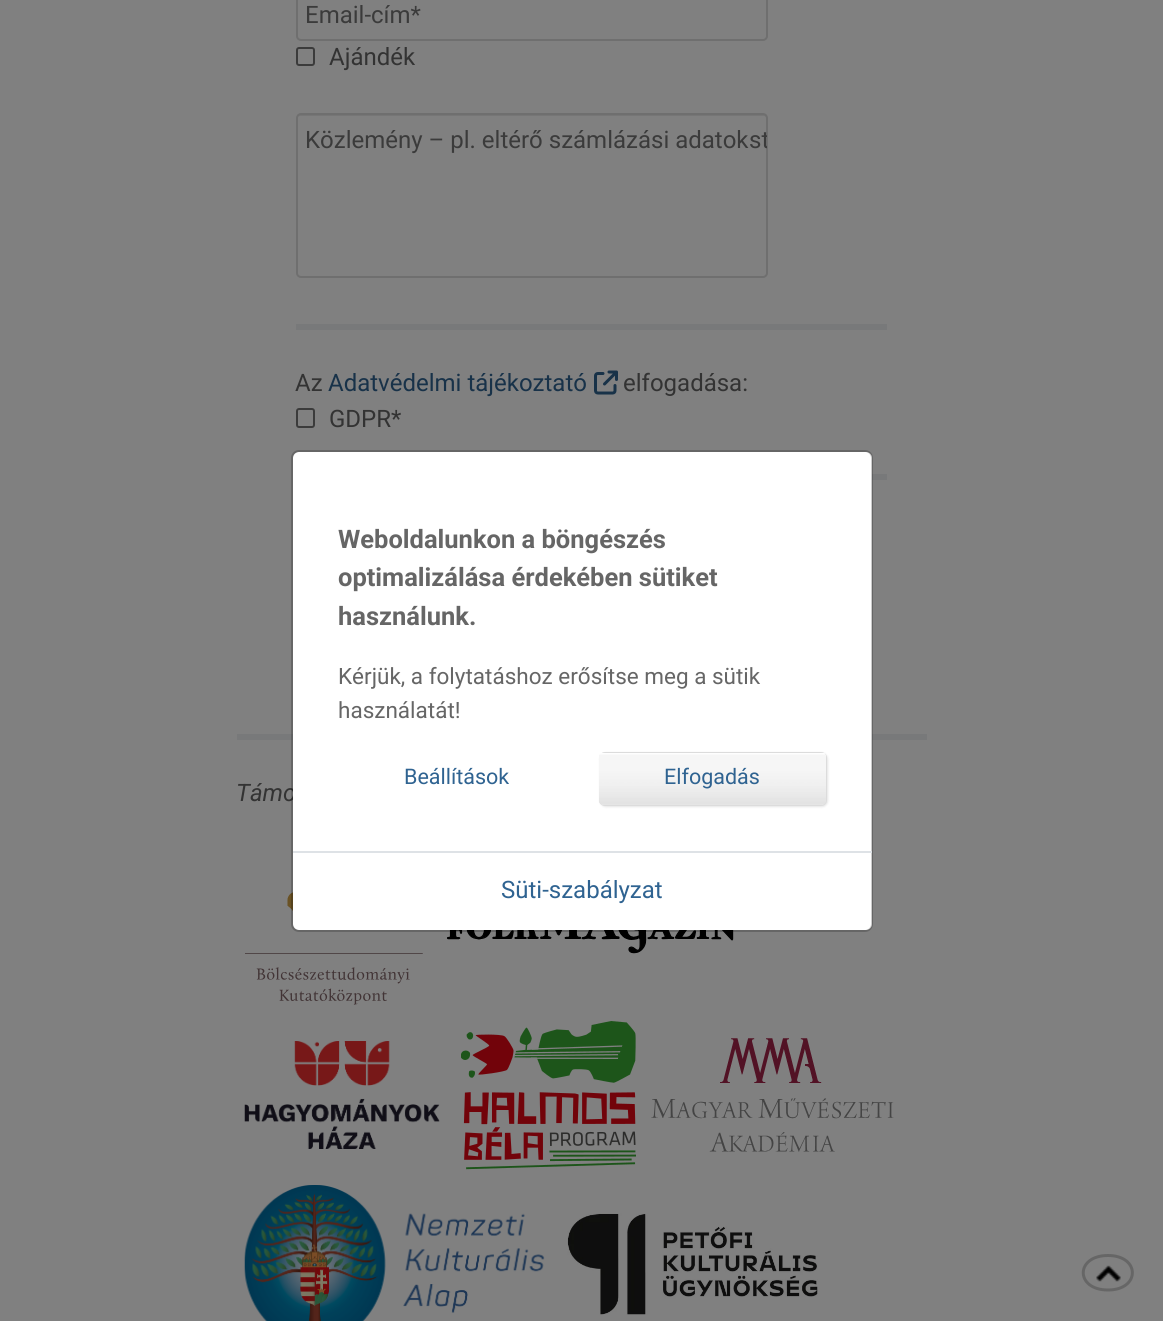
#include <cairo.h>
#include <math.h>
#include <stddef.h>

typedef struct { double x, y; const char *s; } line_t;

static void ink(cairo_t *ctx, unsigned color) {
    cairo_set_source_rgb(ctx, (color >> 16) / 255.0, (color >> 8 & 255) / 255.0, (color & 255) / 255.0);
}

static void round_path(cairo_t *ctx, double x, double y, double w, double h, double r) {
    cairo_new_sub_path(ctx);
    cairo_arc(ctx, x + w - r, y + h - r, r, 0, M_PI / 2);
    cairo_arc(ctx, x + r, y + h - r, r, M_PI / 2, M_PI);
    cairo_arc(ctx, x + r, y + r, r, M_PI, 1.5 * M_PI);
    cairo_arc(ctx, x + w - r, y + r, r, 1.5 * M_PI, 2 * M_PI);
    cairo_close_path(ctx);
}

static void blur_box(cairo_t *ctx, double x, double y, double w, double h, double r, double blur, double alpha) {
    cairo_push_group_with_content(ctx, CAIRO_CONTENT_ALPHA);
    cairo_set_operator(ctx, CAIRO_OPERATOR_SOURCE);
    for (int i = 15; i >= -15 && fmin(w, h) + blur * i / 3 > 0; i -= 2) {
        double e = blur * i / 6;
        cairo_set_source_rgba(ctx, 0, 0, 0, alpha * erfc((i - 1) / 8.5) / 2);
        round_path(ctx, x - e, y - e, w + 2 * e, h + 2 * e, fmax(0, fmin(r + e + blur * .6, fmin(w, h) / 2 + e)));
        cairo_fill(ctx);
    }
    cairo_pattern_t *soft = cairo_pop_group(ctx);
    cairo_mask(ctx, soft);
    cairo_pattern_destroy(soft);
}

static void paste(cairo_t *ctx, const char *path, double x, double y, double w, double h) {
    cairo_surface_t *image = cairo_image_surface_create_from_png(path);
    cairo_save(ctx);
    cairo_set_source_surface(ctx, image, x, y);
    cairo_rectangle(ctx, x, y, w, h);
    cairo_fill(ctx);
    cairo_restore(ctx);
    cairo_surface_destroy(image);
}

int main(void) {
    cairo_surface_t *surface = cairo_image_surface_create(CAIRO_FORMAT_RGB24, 1163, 1321);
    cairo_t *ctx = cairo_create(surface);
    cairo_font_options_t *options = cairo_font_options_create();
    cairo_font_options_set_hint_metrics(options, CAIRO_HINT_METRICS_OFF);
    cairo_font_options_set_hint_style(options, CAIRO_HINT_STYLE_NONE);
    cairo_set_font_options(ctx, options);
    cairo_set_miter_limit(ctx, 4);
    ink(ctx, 0x808080);
    cairo_paint(ctx);
    round_path(ctx, 297, -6, 470, 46, 4);
    ink(ctx, 0x6F6F6F);
    cairo_stroke(ctx);
    cairo_select_font_face(ctx, "Roboto", CAIRO_FONT_SLANT_NORMAL, CAIRO_FONT_WEIGHT_NORMAL);
    cairo_set_font_size(ctx, 24);
    ink(ctx, 0x3B3B3B);
    cairo_move_to(ctx, 305, 23);
    cairo_show_text(ctx, "Email-cím*");
    round_path(ctx, 297, 48, 17, 17, 2);
    cairo_stroke(ctx);
    ink(ctx, 0x333333);
    cairo_move_to(ctx, 329, 65);
    cairo_show_text(ctx, "Ajándék");
    ink(ctx, 0x767676);
    cairo_new_path(ctx);
    cairo_move_to(ctx, 300, 116);
    cairo_line_to(ctx, 764, 116);
    cairo_curve_to(ctx, 765, 116, 766, 117, 766, 118);
    cairo_line_to(ctx, 766, 275);
    cairo_curve_to(ctx, 767, 275, 767, 274, 767, 273);
    cairo_line_to(ctx, 767, 117);
    cairo_curve_to(ctx, 767, 115, 766, 114, 764, 114);
    cairo_line_to(ctx, 300, 114);
    cairo_curve_to(ctx, 298, 114, 297, 115, 297, 117);
    cairo_line_to(ctx, 297, 118);
    cairo_curve_to(ctx, 297, 117, 298, 116, 300, 116);
    cairo_close_path(ctx);
    cairo_fill(ctx);
    round_path(ctx, 297, 114, 470, 163, 4);
    ink(ctx, 0x6F6F6F);
    cairo_stroke(ctx);
    ink(ctx, 0x3B3B3B);
    cairo_move_to(ctx, 305, 148);
    cairo_show_text(ctx, "Közlemény – pl. eltérő számlázási adatok");
    cairo_save(ctx);
    round_path(ctx, 297, 114, 470, 162, 3);
    cairo_clip(ctx);
    cairo_move_to(ctx, 749, 148);
    cairo_show_text(ctx, "st");
    cairo_restore(ctx);
    ink(ctx, 0x78797A);
    cairo_rectangle(ctx, 296, 324, 591, 6);
    cairo_fill(ctx);
    ink(ctx, 0x333333);
    cairo_move_to(ctx, 295, 391);
    cairo_show_text(ctx, "Az");
    ink(ctx, 0x183249);
    cairo_move_to(ctx, 328, 391);
    cairo_show_text(ctx, "Adatvédelmi tájékoztató");
    paste(ctx, "media/1.png", 594, 370, 24, 25);
    ink(ctx, 0x333333);
    cairo_move_to(ctx, 623, 391);
    cairo_show_text(ctx, "elfogadása:");
    round_path(ctx, 297, 409, 17, 18, 2);
    ink(ctx, 0x3B3B3B);
    cairo_stroke(ctx);
    ink(ctx, 0x333333);
    cairo_move_to(ctx, 329, 427);
    cairo_show_text(ctx, "GDPR*");
    ink(ctx, 0x78797A);
    cairo_rectangle(ctx, 872, 474, 15, 6);
    cairo_fill(ctx);
    cairo_rectangle(ctx, 237, 734, 690, 6);
    cairo_fill(ctx);
    cairo_select_font_face(ctx, "Roboto", CAIRO_FONT_SLANT_ITALIC, CAIRO_FONT_WEIGHT_NORMAL);
    ink(ctx, 0x333333);
    cairo_move_to(ctx, 236, 801);
    cairo_show_text(ctx, "Támo");
    paste(ctx, "media/3.png", 245, 892, 178, 113);
    ink(ctx, 0xFFFFFF);
    round_path(ctx, 293, 452, 579, 478, 6);
    cairo_fill(ctx);
    paste(ctx, "media/4.png", 447, 930, 287, 24);
    round_path(ctx, 292, 451, 580, 480, 7);
    cairo_set_source_rgba(ctx, 0, 0, 0, 0.2);
    cairo_stroke(ctx);
    cairo_select_font_face(ctx, "Roboto", CAIRO_FONT_SLANT_NORMAL, CAIRO_FONT_WEIGHT_BOLD);
    cairo_set_font_size(ctx, 25.5);
    ink(ctx, 0x666666);
    {
        static const line_t items[] = {
            {338, 548, "Weboldalunkon a böngészés"},
            {338, 586, "optimalizálása érdekében sütiket"},
            {338, 625, "használunk."},
        };
        for (size_t i = 0; i < sizeof items / sizeof *items; i++) {
            cairo_move_to(ctx, items[i].x, items[i].y);
            cairo_show_text(ctx, items[i].s);
        }
    }
    cairo_select_font_face(ctx, "Roboto", CAIRO_FONT_SLANT_NORMAL, CAIRO_FONT_WEIGHT_NORMAL);
    cairo_set_font_size(ctx, 22.5);
    cairo_move_to(ctx, 338, 684);
    cairo_show_text(ctx, "Kérjük, a folytatáshoz erősítse meg a sütik");
    cairo_move_to(ctx, 338, 718);
    cairo_show_text(ctx, "használatát!");
    cairo_set_font_size(ctx, 21.5);
    ink(ctx, 0x2F6391);
    cairo_move_to(ctx, 404, 784);
    cairo_show_text(ctx, "Beállítások");
    ink(ctx, 0x000000);
    blur_box(ctx, 600, 753, 228, 54, 6, 1, 0.1);
    ink(ctx, 0xDCDCDC);
    round_path(ctx, 599, 752, 228, 54, 6);
    cairo_fill(ctx);
    paste(ctx, "media/2.png", 599, 753, 227, 52);
    ink(ctx, 0x2F6391);
    cairo_move_to(ctx, 664, 784);
    cairo_show_text(ctx, "Elfogadás");
    ink(ctx, 0xDEE2E6);
    cairo_rectangle(ctx, 293, 851, 579, 2);
    cairo_fill(ctx);
    cairo_set_font_size(ctx, 24);
    ink(ctx, 0x2F6391);
    cairo_move_to(ctx, 501, 898);
    cairo_show_text(ctx, "Süti-szabályzat");
    paste(ctx, "media/5.png", 244, 1041, 196, 108);
    paste(ctx, "media/6.png", 461, 1021, 175, 149);
    paste(ctx, "media/7.png", 651, 1038, 243, 114);
    paste(ctx, "media/8.png", 244, 1185, 301, 136);
    paste(ctx, "media/9.png", 567, 1213, 251, 102);
    paste(ctx, "media/10.png", 1096, 1265, 25, 17);
    cairo_new_path(ctx);
    cairo_move_to(ctx, 1108, 1255.5);
    cairo_curve_to(ctx, 1140.5, 1255.5, 1140.5, 1290, 1108, 1290);
    cairo_curve_to(ctx, 1075, 1290, 1075, 1255.5, 1108, 1255.5);
    cairo_close_path(ctx);
    ink(ctx, 0x666666);
    cairo_set_line_width(ctx, 3);
    cairo_stroke(ctx);
    cairo_surface_write_to_png(surface, "image.png");
    cairo_font_options_destroy(options);
    cairo_destroy(ctx);
    cairo_surface_destroy(surface);
    return 0;
}
